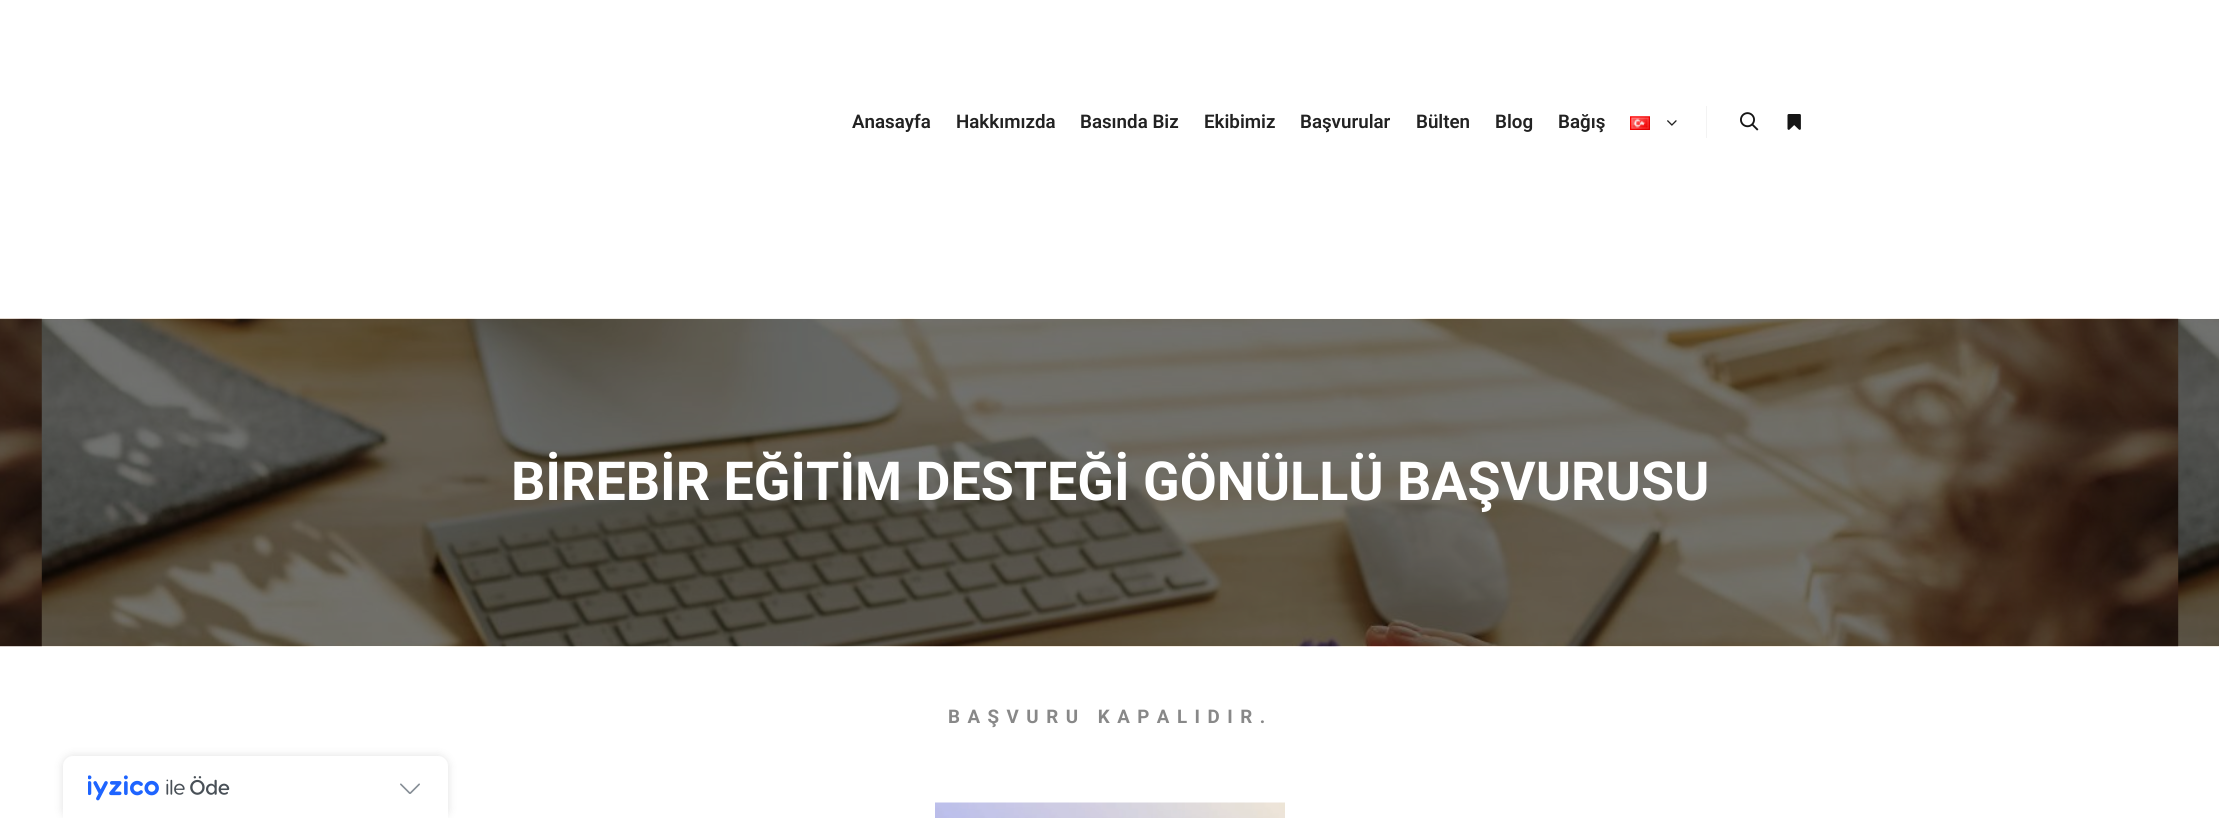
#include <cairo.h>
#include <math.h>
#include <stddef.h>

typedef struct { double x, y; const char *s; } line_t;

static void ink(cairo_t *ctx, unsigned color) {
    cairo_set_source_rgb(ctx, (color >> 16) / 255.0, (color >> 8 & 255) / 255.0, (color & 255) / 255.0);
}

static void write_spaced(cairo_t *ctx, double x, double y, const char *s, double letter, double word) {
    cairo_move_to(ctx, x, y);
    while (*s) {
        char ch[5] = {0};
        int n = 0;
        do ch[n++] = *s++; while ((*s & 0xC0) == 0x80);
        cairo_show_text(ctx, ch);
        cairo_rel_move_to(ctx, letter + word * (*ch == ' '), 0);
    }
}

static void round_path(cairo_t *ctx, double x, double y, double w, double h, double r) {
    cairo_new_sub_path(ctx);
    cairo_arc(ctx, x + w - r, y + h - r, r, 0, M_PI / 2);
    cairo_arc(ctx, x + r, y + h - r, r, M_PI / 2, M_PI);
    cairo_arc(ctx, x + r, y + r, r, M_PI, 1.5 * M_PI);
    cairo_arc(ctx, x + w - r, y + r, r, 1.5 * M_PI, 2 * M_PI);
    cairo_close_path(ctx);
}

static void blur_box(cairo_t *ctx, double x, double y, double w, double h, double r, double blur, double alpha) {
    cairo_push_group_with_content(ctx, CAIRO_CONTENT_ALPHA);
    cairo_set_operator(ctx, CAIRO_OPERATOR_SOURCE);
    for (int i = 15; i >= -15 && fmin(w, h) + blur * i / 3 > 0; i -= 2) {
        double e = blur * i / 6;
        cairo_set_source_rgba(ctx, 0, 0, 0, alpha * erfc((i - 1) / 8.5) / 2);
        round_path(ctx, x - e, y - e, w + 2 * e, h + 2 * e, fmax(0, fmin(r + e + blur * .6, fmin(w, h) / 2 + e)));
        cairo_fill(ctx);
    }
    cairo_pattern_t *soft = cairo_pop_group(ctx);
    cairo_mask(ctx, soft);
    cairo_pattern_destroy(soft);
}

static void paste(cairo_t *ctx, const char *path, double x, double y, double w, double h) {
    cairo_surface_t *image = cairo_image_surface_create_from_png(path);
    cairo_save(ctx);
    cairo_set_source_surface(ctx, image, x, y);
    cairo_rectangle(ctx, x, y, w, h);
    cairo_fill(ctx);
    cairo_restore(ctx);
    cairo_surface_destroy(image);
}

int main(void) {
    cairo_surface_t *surface = cairo_image_surface_create(CAIRO_FORMAT_RGB24, 2219, 818);
    cairo_t *ctx = cairo_create(surface);
    cairo_font_options_t *options = cairo_font_options_create();
    cairo_font_options_set_hint_metrics(options, CAIRO_HINT_METRICS_OFF);
    cairo_font_options_set_hint_style(options, CAIRO_HINT_STYLE_NONE);
    cairo_set_font_options(ctx, options);
    cairo_set_miter_limit(ctx, 4);
    ink(ctx, 0xFFFFFF);
    cairo_paint(ctx);
    cairo_select_font_face(ctx, "Roboto SemiBold", CAIRO_FONT_SLANT_NORMAL, CAIRO_FONT_WEIGHT_NORMAL);
    cairo_set_font_size(ctx, 18.75);
    ink(ctx, 0x222222);
    {
        static const line_t items[] = {
            {852, 128, "Anasayfa"},
            {956, 128, "Hakkımızda"},
            {1080, 128, "Basında Biz"},
            {1204, 128, "Ekibimiz"},
            {1300, 128, "Başvurular"},
            {1416, 128, "Bülten"},
            {1495, 128, "Blog"},
            {1558, 128, "Bağış"},
        };
        for (size_t i = 0; i < sizeof items / sizeof *items; i++) {
            cairo_move_to(ctx, items[i].x, items[i].y);
            cairo_show_text(ctx, items[i].s);
        }
    }
    paste(ctx, "media/1.png", 1630, 116, 20, 14);
    paste(ctx, "media/2.png", 1667, 120, 10, 6);
    ink(ctx, 0xF3F3F3);
    cairo_rectangle(ctx, 1706, 106, 1, 32);
    cairo_fill(ctx);
    paste(ctx, "media/3.png", 1740, 112, 19, 19);
    paste(ctx, "media/4.png", 1787, 114, 14, 16);
    paste(ctx, "media/5.png", 0, 318, 2219, 329);
    cairo_select_font_face(ctx, "Roboto", CAIRO_FONT_SLANT_NORMAL, CAIRO_FONT_WEIGHT_BOLD);
    cairo_set_font_size(ctx, 53.75);
    ink(ctx, 0xFFFFFF);
    cairo_move_to(ctx, 511, 500);
    cairo_show_text(ctx, "BİREBİR EĞİTİM DESTEĞİ GÖNÜLLÜ BAŞVURUSU");
    cairo_set_font_size(ctx, 18.75);
    ink(ctx, 0x888888);
    write_spaced(ctx, 948, 723, "BAŞVURU KAPALIDIR.", 7.5, 0);
    paste(ctx, "media/6.png", 935, 802, 350, 16);
    ink(ctx, 0x000000);
    blur_box(ctx, 63, 756, 385, 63, 10, 5, 0.12);
    ink(ctx, 0xFFFFFF);
    cairo_new_path(ctx);
    cairo_move_to(ctx, 73, 756);
    cairo_line_to(ctx, 438, 756);
    cairo_curve_to(ctx, 443.5, 756, 448, 760.5, 448, 766);
    cairo_line_to(ctx, 448, 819);
    cairo_line_to(ctx, 63, 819);
    cairo_line_to(ctx, 63, 766);
    cairo_curve_to(ctx, 63, 760.5, 67.5, 756, 73, 756);
    cairo_close_path(ctx);
    cairo_fill(ctx);
    paste(ctx, "media/7.png", 88, 775, 142, 26);
    paste(ctx, "media/8.png", 400, 783, 20, 11);
    cairo_surface_write_to_png(surface, "image.png");
    cairo_font_options_destroy(options);
    cairo_destroy(ctx);
    cairo_surface_destroy(surface);
    return 0;
}
